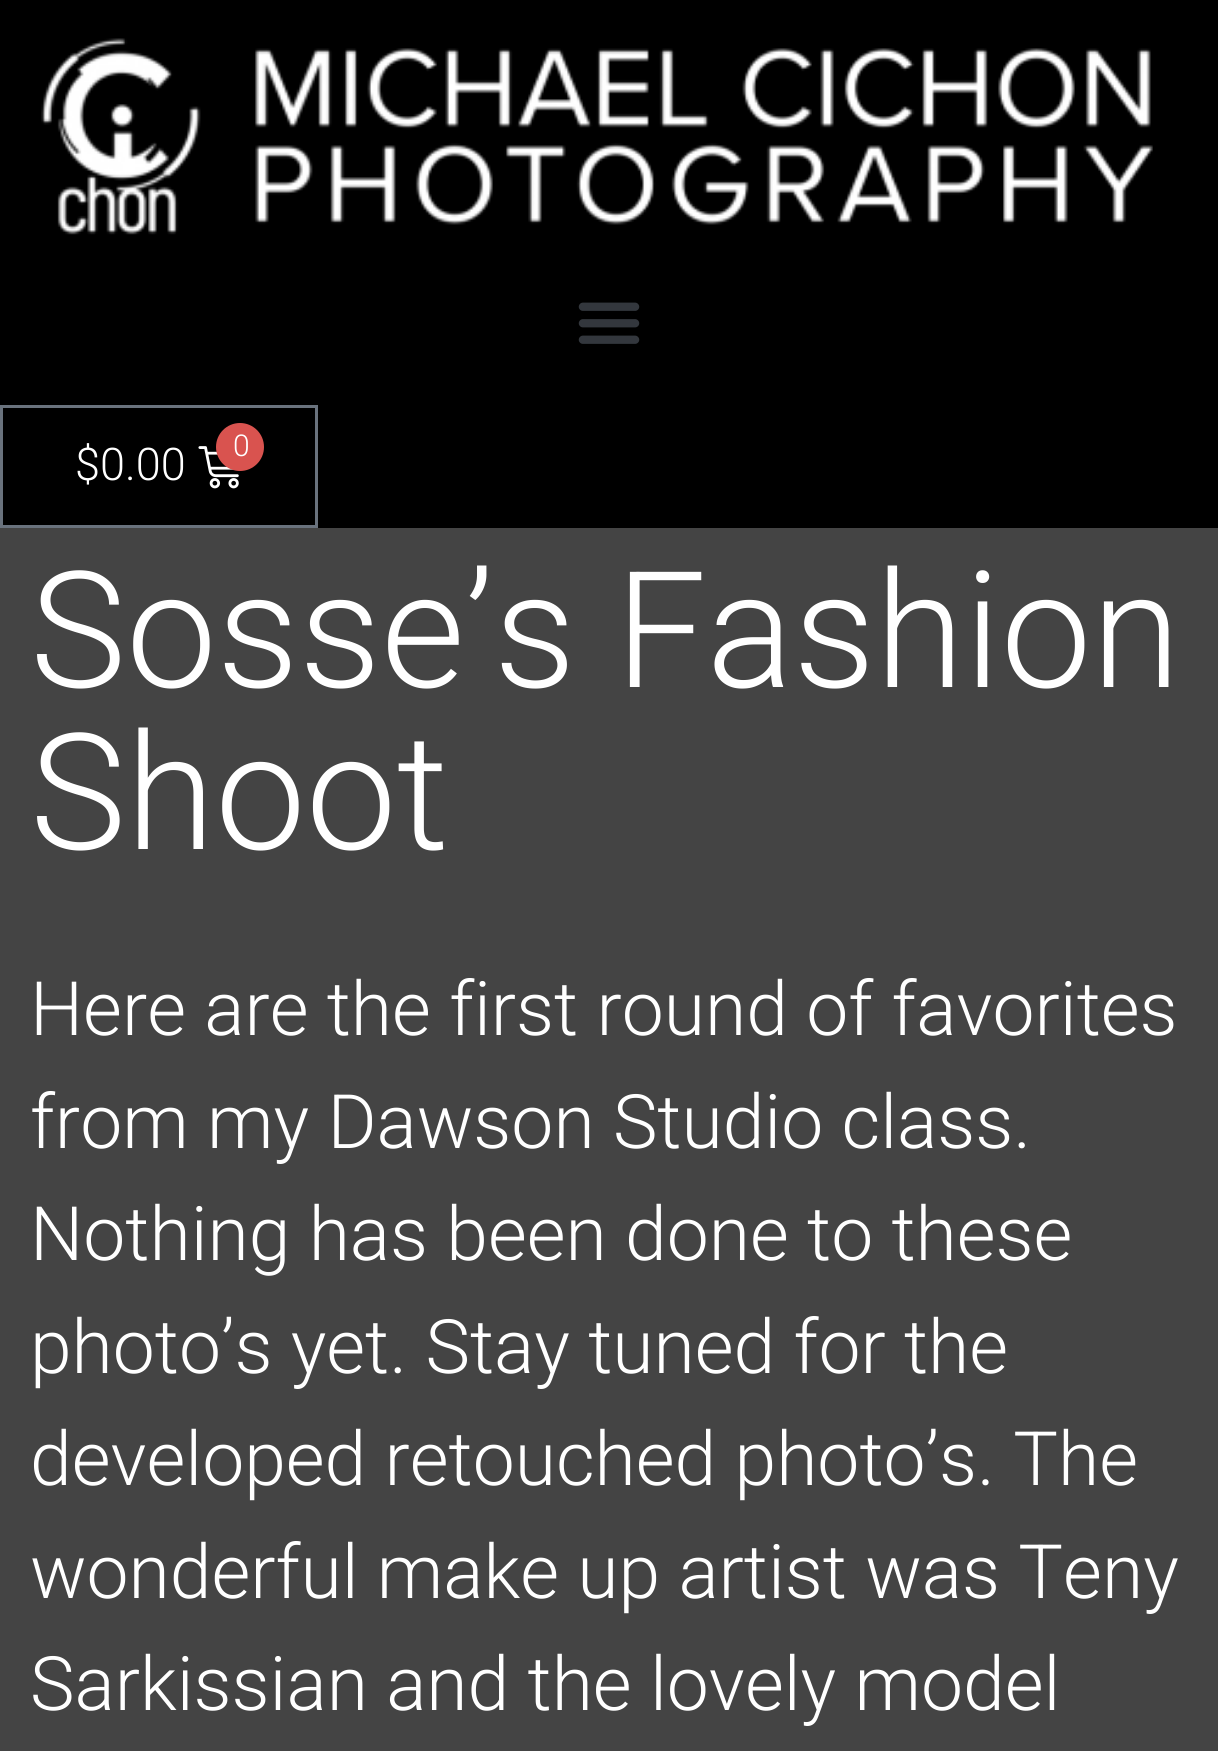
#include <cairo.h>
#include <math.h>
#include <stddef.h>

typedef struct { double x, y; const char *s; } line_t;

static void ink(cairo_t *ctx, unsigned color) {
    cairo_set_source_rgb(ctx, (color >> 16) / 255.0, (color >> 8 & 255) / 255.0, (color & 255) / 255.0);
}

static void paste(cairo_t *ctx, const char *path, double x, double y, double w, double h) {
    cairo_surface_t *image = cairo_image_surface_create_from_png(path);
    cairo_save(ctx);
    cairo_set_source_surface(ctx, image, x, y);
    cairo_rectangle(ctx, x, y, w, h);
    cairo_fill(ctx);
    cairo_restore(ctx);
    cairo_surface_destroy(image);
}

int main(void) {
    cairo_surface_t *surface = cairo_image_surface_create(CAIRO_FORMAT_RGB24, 1218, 1751);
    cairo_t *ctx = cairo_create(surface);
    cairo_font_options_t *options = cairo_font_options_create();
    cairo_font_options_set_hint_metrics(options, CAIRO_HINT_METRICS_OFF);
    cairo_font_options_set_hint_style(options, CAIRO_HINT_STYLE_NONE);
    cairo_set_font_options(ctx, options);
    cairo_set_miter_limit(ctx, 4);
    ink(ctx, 0x444444);
    cairo_paint(ctx);
    ink(ctx, 0x000000);
    cairo_rectangle(ctx, 0, 0, 1218, 528);
    cairo_fill(ctx);
    paste(ctx, "media/1.png", 41, 38, 1112, 197);
    paste(ctx, "media/2.png", 578, 302, 62, 42);
    cairo_rectangle(ctx, 1.5, 406.5, 315, 120);
    ink(ctx, 0x69727D);
    cairo_set_line_width(ctx, 3);
    cairo_stroke(ctx);
    cairo_select_font_face(ctx, "Roboto Light", CAIRO_FONT_SLANT_NORMAL, CAIRO_FONT_WEIGHT_NORMAL);
    cairo_set_font_size(ctx, 45);
    ink(ctx, 0xFFFFFF);
    cairo_move_to(ctx, 75, 480);
    cairo_show_text(ctx, "$0.00");
    paste(ctx, "media/3.png", 198, 446, 41, 43);
    ink(ctx, 0xD9534F);
    cairo_arc(ctx, 240, 447, 24, 0, 2 * M_PI);
    cairo_fill(ctx);
    cairo_set_font_size(ctx, 30);
    ink(ctx, 0xFFFFFF);
    cairo_move_to(ctx, 233, 456);
    cairo_show_text(ctx, "0");
    cairo_set_font_size(ctx, 162);
    cairo_move_to(ctx, 30, 687);
    cairo_show_text(ctx, "Sosse’s Fashion");
    cairo_move_to(ctx, 30, 849);
    cairo_show_text(ctx, "Shoot");
    cairo_set_font_size(ctx, 75);
    {
        static const line_t items[] = {
            {30, 1035, "Here are the first round of favorites"},
            {30, 1148, "from my Dawson Studio class."},
            {30, 1260, "Nothing has been done to these"},
            {30, 1373, "photo’s yet. Stay tuned for the"},
            {30, 1485, "developed retouched photo’s. The"},
            {30, 1598, "wonderful make up artist was Teny"},
            {30, 1710, "Sarkissian and the lovely model"},
        };
        for (size_t i = 0; i < sizeof items / sizeof *items; i++) {
            cairo_move_to(ctx, items[i].x, items[i].y);
            cairo_show_text(ctx, items[i].s);
        }
    }
    cairo_surface_write_to_png(surface, "image.png");
    cairo_font_options_destroy(options);
    cairo_destroy(ctx);
    cairo_surface_destroy(surface);
    return 0;
}
